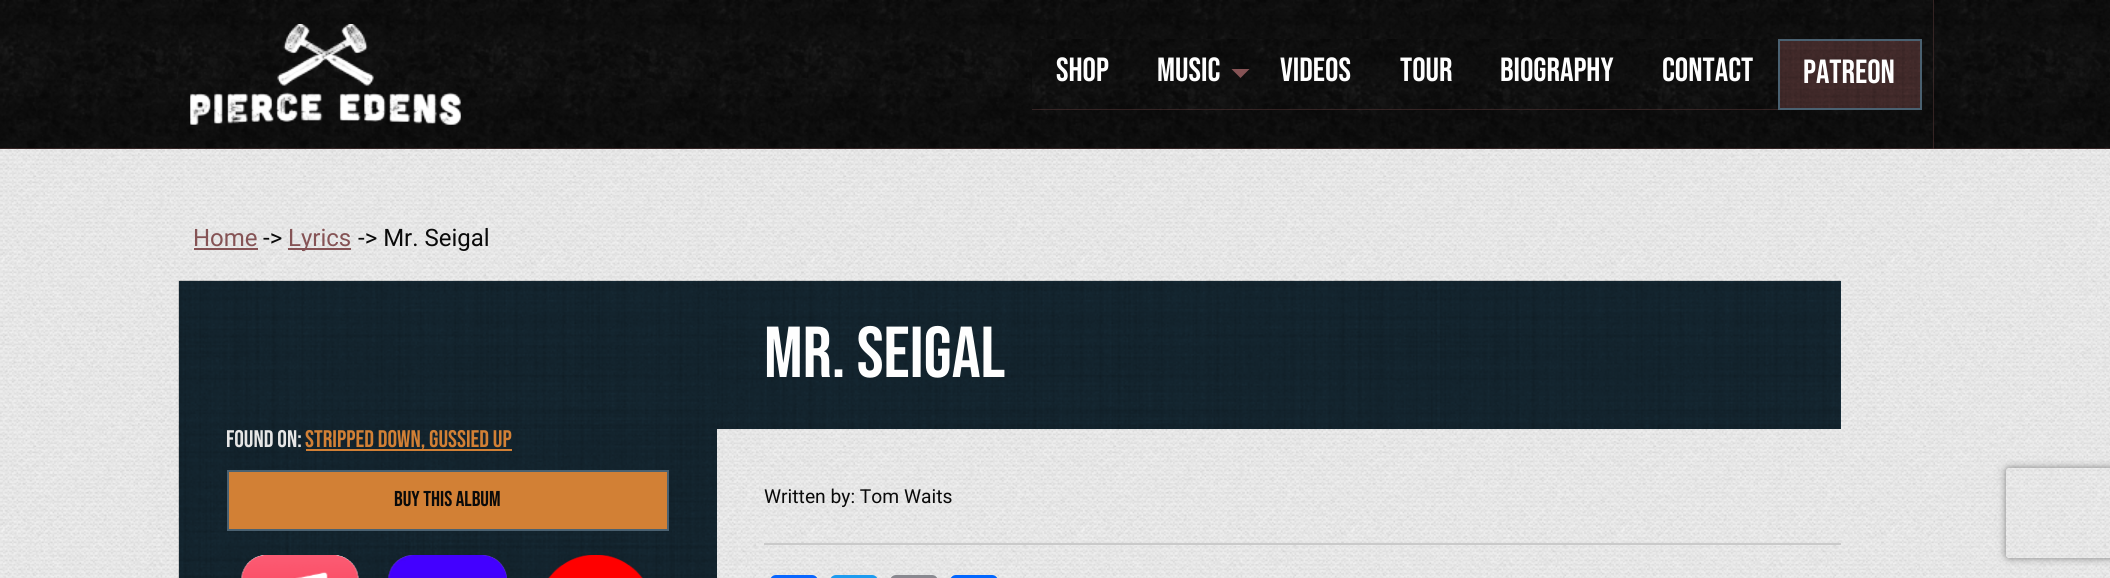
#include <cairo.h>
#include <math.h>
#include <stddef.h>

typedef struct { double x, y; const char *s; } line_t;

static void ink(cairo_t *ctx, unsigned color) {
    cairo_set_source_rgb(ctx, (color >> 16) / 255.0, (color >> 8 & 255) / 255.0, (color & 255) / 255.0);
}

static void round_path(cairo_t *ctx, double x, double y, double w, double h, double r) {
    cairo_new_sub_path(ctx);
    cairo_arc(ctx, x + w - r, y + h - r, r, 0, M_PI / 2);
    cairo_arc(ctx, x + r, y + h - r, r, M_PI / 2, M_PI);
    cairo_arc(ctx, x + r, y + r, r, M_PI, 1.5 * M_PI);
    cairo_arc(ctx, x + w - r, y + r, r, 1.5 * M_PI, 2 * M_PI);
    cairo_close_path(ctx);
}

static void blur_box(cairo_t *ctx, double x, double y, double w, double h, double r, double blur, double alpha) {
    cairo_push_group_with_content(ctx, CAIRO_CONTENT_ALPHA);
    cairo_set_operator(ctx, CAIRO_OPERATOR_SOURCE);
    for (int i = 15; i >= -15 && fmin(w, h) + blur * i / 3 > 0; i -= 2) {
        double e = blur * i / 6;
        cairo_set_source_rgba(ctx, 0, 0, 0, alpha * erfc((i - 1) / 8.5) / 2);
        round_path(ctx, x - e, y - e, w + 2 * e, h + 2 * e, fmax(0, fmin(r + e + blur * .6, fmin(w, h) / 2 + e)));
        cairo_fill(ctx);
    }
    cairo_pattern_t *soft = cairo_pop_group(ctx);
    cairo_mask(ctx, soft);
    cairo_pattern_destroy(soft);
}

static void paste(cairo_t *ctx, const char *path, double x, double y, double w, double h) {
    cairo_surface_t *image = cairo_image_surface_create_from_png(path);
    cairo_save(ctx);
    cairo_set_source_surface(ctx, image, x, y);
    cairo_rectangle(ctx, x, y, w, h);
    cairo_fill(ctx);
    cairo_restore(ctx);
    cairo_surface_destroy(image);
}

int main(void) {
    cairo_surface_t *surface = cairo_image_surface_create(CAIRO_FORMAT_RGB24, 2110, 578);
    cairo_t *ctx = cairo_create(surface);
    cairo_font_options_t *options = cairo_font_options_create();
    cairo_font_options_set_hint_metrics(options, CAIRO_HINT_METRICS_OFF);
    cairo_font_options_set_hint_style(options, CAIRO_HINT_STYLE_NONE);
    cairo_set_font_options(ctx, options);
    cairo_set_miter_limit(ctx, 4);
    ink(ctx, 0xFFFFFF);
    cairo_paint(ctx);
    paste(ctx, "media/1.png", 0, 149, 2110, 429);
    ink(ctx, 0x5C3B3B);
    cairo_rectangle(ctx, 0, 148, 2110, 1);
    cairo_fill(ctx);
    paste(ctx, "media/2.png", 0, 0, 2110, 149);
    cairo_rectangle(ctx, 179, 0, 1755, 149);
    cairo_fill(ctx);
    paste(ctx, "media/3.png", 178, 0, 1756, 149);
    paste(ctx, "media/4.png", 190, 24, 271, 101);
    paste(ctx, "media/5.png", 190, 24, 271, 101);
    cairo_rectangle(ctx, 1032, 109, 746, 1);
    cairo_fill(ctx);
    paste(ctx, "media/6.png", 1032, 39, 746, 71);
    cairo_select_font_face(ctx, "Bebas Neue", CAIRO_FONT_SLANT_NORMAL, CAIRO_FONT_WEIGHT_NORMAL);
    cairo_set_font_size(ctx, 33.5);
    ink(ctx, 0xFEFEFE);
    cairo_move_to(ctx, 1056, 81);
    cairo_show_text(ctx, "Shop");
    cairo_move_to(ctx, 1157, 81);
    cairo_show_text(ctx, "Music");
    ink(ctx, 0x855355);
    cairo_new_path(ctx);
    cairo_move_to(ctx, 1231.5, 69);
    cairo_line_to(ctx, 1249.5, 69);
    cairo_line_to(ctx, 1240.5, 78);
    cairo_close_path(ctx);
    cairo_fill(ctx);
    ink(ctx, 0xFEFEFE);
    {
        static const line_t items[] = {
            {1280, 81, "Videos"},
            {1400, 81, "Tour"},
            {1500, 81, "Biography"},
            {1662, 81, "Contact"},
        };
        for (size_t i = 0; i < sizeof items / sizeof *items; i++) {
            cairo_move_to(ctx, items[i].x, items[i].y);
            cairo_show_text(ctx, items[i].s);
        }
    }
    ink(ctx, 0x5C3B3B);
    cairo_rectangle(ctx, 1780, 41, 140, 67);
    cairo_fill(ctx);
    paste(ctx, "media/7.png", 1780, 41, 140, 67);
    cairo_rectangle(ctx, 1779, 40, 142, 69);
    ink(ctx, 0x4A6171);
    cairo_stroke(ctx);
    ink(ctx, 0xFEFEFE);
    cairo_move_to(ctx, 1803, 83);
    cairo_show_text(ctx, "Patreon");
    cairo_select_font_face(ctx, "Roboto", CAIRO_FONT_SLANT_NORMAL, CAIRO_FONT_WEIGHT_NORMAL);
    cairo_set_font_size(ctx, 24);
    ink(ctx, 0x855355);
    cairo_move_to(ctx, 193, 246);
    cairo_show_text(ctx, "Home");
    cairo_rectangle(ctx, 194, 248, 64, 2);
    cairo_fill(ctx);
    ink(ctx, 0x0A0A0A);
    cairo_move_to(ctx, 263, 246);
    cairo_show_text(ctx, "->");
    ink(ctx, 0x855355);
    cairo_rectangle(ctx, 288, 248, 63, 2);
    cairo_fill(ctx);
    cairo_move_to(ctx, 288, 246);
    cairo_show_text(ctx, "Lyrics");
    ink(ctx, 0x0A0A0A);
    cairo_move_to(ctx, 358, 246);
    cairo_show_text(ctx, "-> Mr. Seigal");
    ink(ctx, 0x1B3341);
    cairo_rectangle(ctx, 717, 281, 1124, 148);
    cairo_fill(ctx);
    paste(ctx, "media/15.png", 715, 280, 1126, 149);
    cairo_rectangle(ctx, 179, 281, 538, 297);
    cairo_fill(ctx);
    paste(ctx, "media/8.png", 178, 280, 539, 298);
    cairo_select_font_face(ctx, "Bebas Neue", CAIRO_FONT_SLANT_NORMAL, CAIRO_FONT_WEIGHT_NORMAL);
    ink(ctx, 0xE6E6E6);
    cairo_move_to(ctx, 226, 447);
    cairo_show_text(ctx, "Found on:");
    ink(ctx, 0xD28035);
    cairo_rectangle(ctx, 306, 449, 206, 2);
    cairo_fill(ctx);
    cairo_move_to(ctx, 305, 447);
    cairo_show_text(ctx, "Stripped Down, Gussied Up");
    cairo_rectangle(ctx, 228, 471, 440, 59);
    cairo_fill_preserve(ctx);
    ink(ctx, 0x4A6171);
    cairo_stroke(ctx);
    cairo_set_font_size(ctx, 21.5);
    ink(ctx, 0x0A0A0A);
    cairo_move_to(ctx, 394, 506);
    cairo_show_text(ctx, "Buy this Album");
    paste(ctx, "media/9.png", 241, 555, 118, 23);
    paste(ctx, "media/10.png", 241, 555, 118, 23);
    paste(ctx, "media/11.png", 388, 555, 119, 23);
    paste(ctx, "media/12.png", 388, 555, 119, 23);
    paste(ctx, "media/13.png", 548, 555, 95, 23);
    paste(ctx, "media/14.png", 548, 555, 95, 23);
    cairo_set_font_size(ctx, 72);
    ink(ctx, 0xFEFEFE);
    cairo_move_to(ctx, 764, 377);
    cairo_show_text(ctx, "Mr. Seigal");
    cairo_select_font_face(ctx, "Roboto", CAIRO_FONT_SLANT_NORMAL, CAIRO_FONT_WEIGHT_NORMAL);
    cairo_set_font_size(ctx, 19.25);
    ink(ctx, 0x0A0A0A);
    cairo_move_to(ctx, 764, 503);
    cairo_show_text(ctx, "Written by: Tom Waits");
    ink(ctx, 0xCACACA);
    cairo_rectangle(ctx, 764, 543, 1077, 2);
    cairo_fill(ctx);
    ink(ctx, 0x0866FF);
    round_path(ctx, 770, 575, 48, 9, 6);
    cairo_fill(ctx);
    ink(ctx, 0x1D9BF0);
    round_path(ctx, 830, 575, 48, 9, 6);
    cairo_fill(ctx);
    ink(ctx, 0x888990);
    round_path(ctx, 890, 575, 48, 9, 6);
    cairo_fill(ctx);
    ink(ctx, 0x0166FF);
    round_path(ctx, 950, 575, 48, 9, 6);
    cairo_fill(ctx);
    cairo_save(ctx);
    cairo_set_fill_rule(ctx, CAIRO_FILL_RULE_EVEN_ODD);
    cairo_new_path(ctx);
    cairo_move_to(ctx, 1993, 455);
    cairo_line_to(ctx, 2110, 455);
    cairo_line_to(ctx, 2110, 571);
    cairo_line_to(ctx, 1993, 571);
    cairo_close_path(ctx);
    cairo_move_to(ctx, 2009, 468);
    cairo_line_to(ctx, 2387, 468);
    cairo_curve_to(ctx, 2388.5, 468, 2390, 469.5, 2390, 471);
    cairo_line_to(ctx, 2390, 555);
    cairo_curve_to(ctx, 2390, 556.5, 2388.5, 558, 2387, 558);
    cairo_line_to(ctx, 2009, 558);
    cairo_curve_to(ctx, 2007.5, 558, 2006, 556.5, 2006, 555);
    cairo_line_to(ctx, 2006, 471);
    cairo_curve_to(ctx, 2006, 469.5, 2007.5, 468, 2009, 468);
    cairo_close_path(ctx);
    cairo_clip(ctx);
    ink(ctx, 0x808080);
    blur_box(ctx, 2006, 468, 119, 90, 3, 4, 1);
    cairo_restore(ctx);
    cairo_surface_write_to_png(surface, "image.png");
    cairo_font_options_destroy(options);
    cairo_destroy(ctx);
    cairo_surface_destroy(surface);
    return 0;
}
